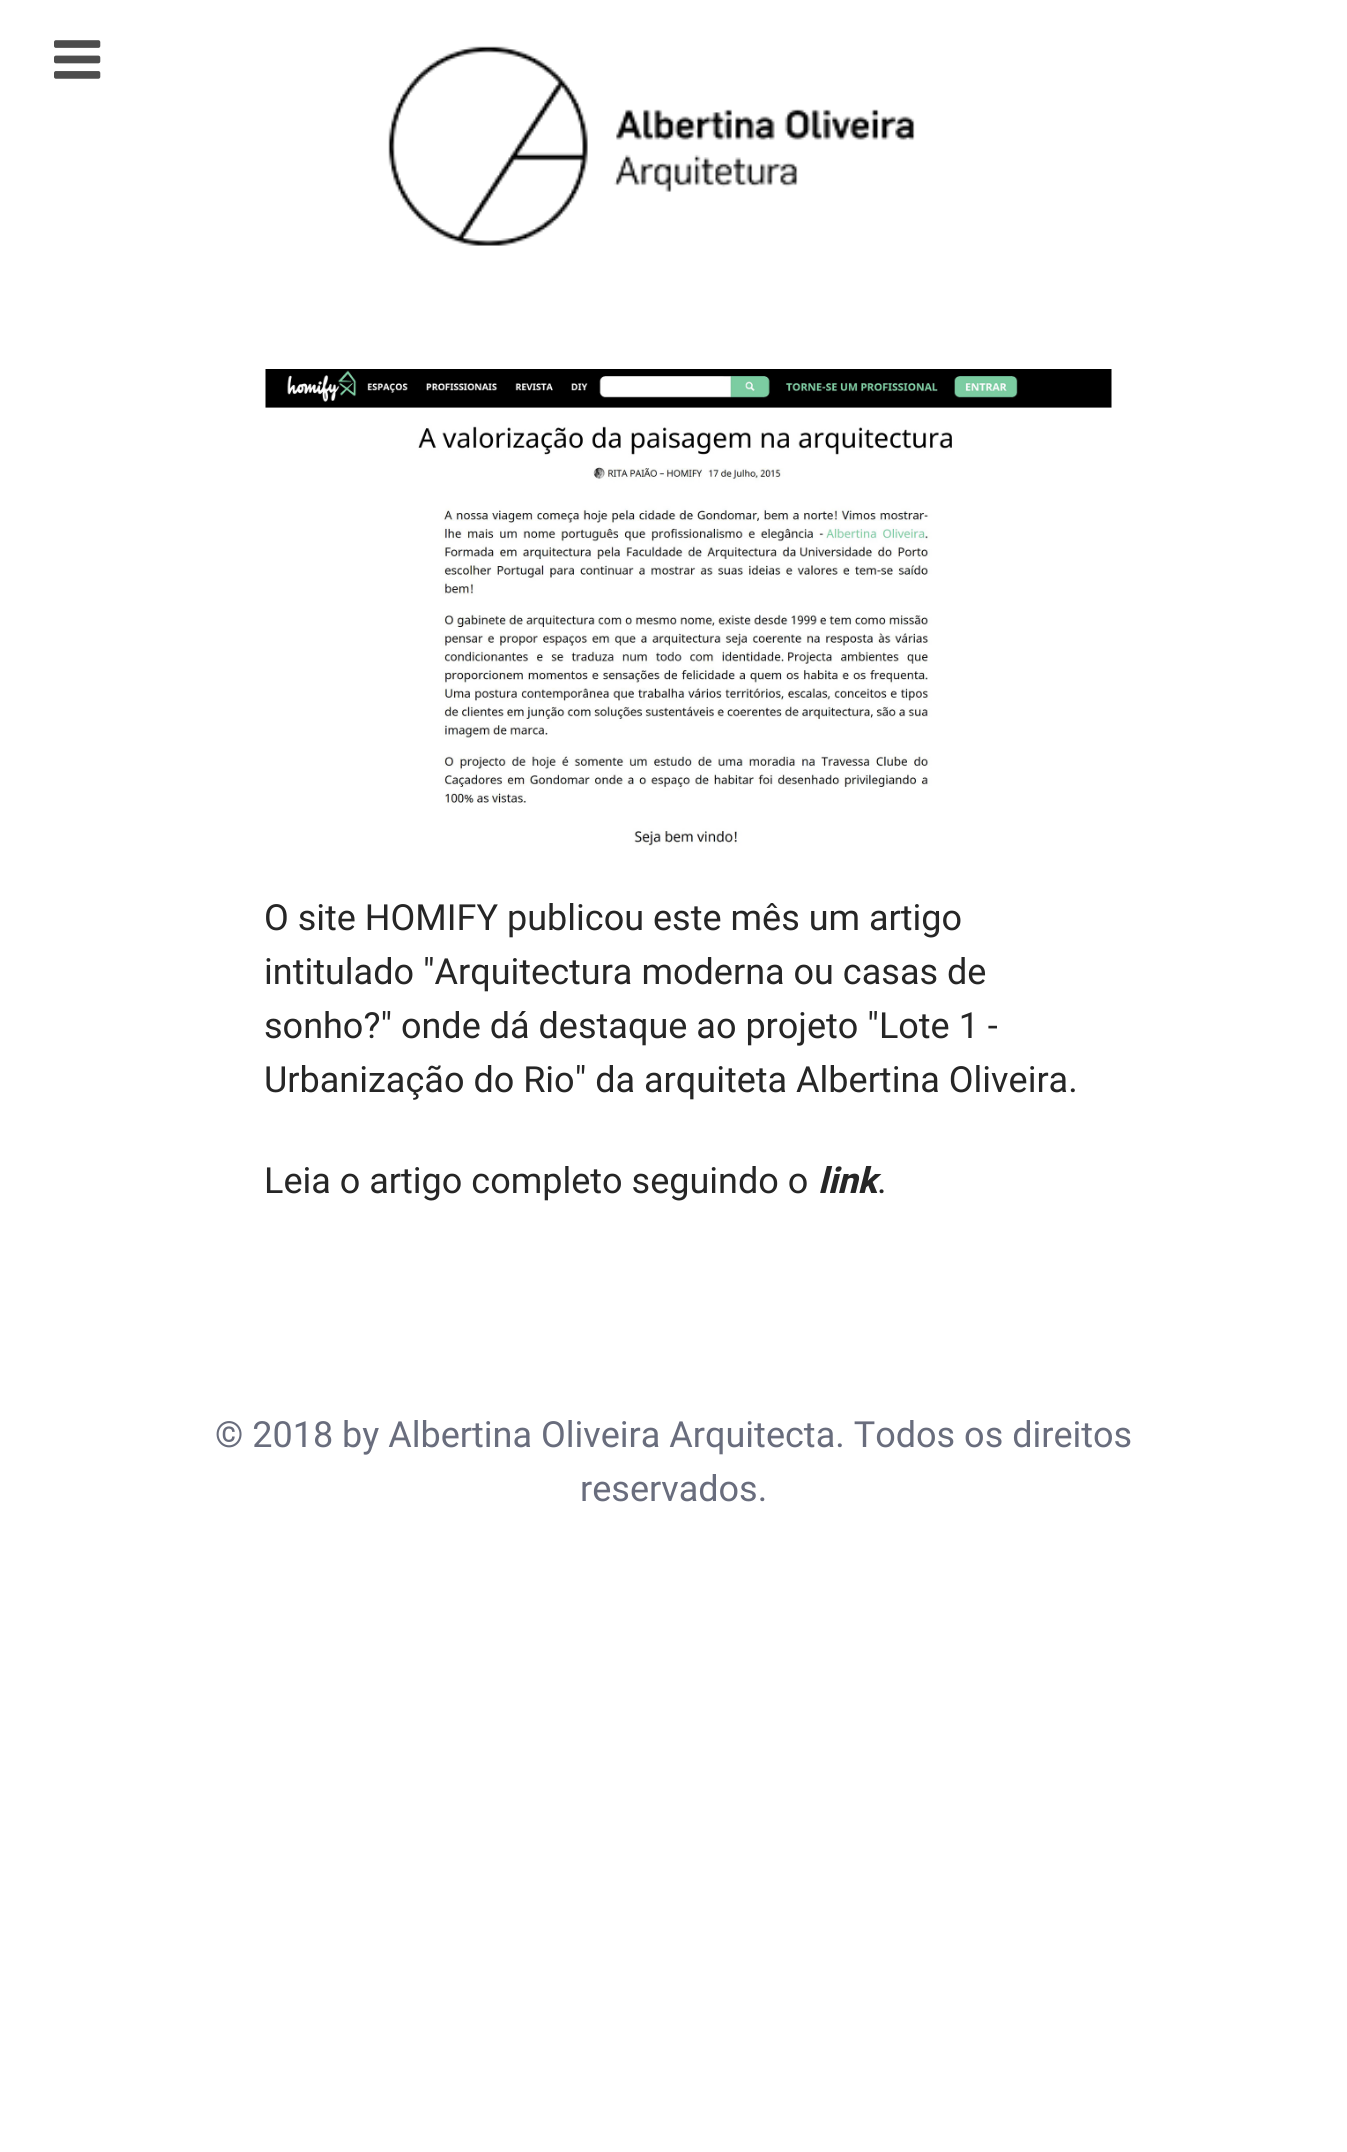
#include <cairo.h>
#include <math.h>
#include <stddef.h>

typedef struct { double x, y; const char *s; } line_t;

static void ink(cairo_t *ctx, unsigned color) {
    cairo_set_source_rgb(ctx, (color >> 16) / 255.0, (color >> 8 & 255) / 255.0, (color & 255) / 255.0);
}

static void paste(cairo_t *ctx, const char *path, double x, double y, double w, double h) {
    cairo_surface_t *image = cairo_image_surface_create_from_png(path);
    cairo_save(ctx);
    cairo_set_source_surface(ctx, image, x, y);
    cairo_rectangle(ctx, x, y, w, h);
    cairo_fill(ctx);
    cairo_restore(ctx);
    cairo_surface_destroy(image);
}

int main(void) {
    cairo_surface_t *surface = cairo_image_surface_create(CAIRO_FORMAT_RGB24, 1347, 2152);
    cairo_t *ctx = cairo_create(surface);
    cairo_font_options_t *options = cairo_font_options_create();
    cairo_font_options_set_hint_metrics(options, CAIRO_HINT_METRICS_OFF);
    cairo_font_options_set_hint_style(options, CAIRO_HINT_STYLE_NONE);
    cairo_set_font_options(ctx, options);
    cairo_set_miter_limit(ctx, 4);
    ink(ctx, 0xFFFFFF);
    cairo_paint(ctx);
    paste(ctx, "media/1.png", 54, 40, 47, 39);
    paste(ctx, "media/2.png", 388, 46, 527, 200);
    paste(ctx, "media/3.png", 265, 369, 847, 477);
    cairo_select_font_face(ctx, "Heebo", CAIRO_FONT_SLANT_NORMAL, CAIRO_FONT_WEIGHT_NORMAL);
    cairo_set_font_size(ctx, 36);
    ink(ctx, 0x262626);
    {
        static const line_t items[] = {
            {264, 930, "O site HOMIFY publicou este mês um artigo"},
            {264, 984, "intitulado \"Arquitectura moderna ou casas de"},
            {264, 1038, "sonho?\" onde dá destaque ao projeto \"Lote 1 -"},
            {264, 1092, "Urbanização do Rio\" da arquiteta Albertina Oliveira."},
            {264, 1193, "Leia o artigo completo seguindo o"},
        };
        for (size_t i = 0; i < sizeof items / sizeof *items; i++) {
            cairo_move_to(ctx, items[i].x, items[i].y);
            cairo_show_text(ctx, items[i].s);
        }
    }
    cairo_select_font_face(ctx, "Heebo", CAIRO_FONT_SLANT_ITALIC, CAIRO_FONT_WEIGHT_BOLD);
    cairo_move_to(ctx, 818, 1193);
    cairo_show_text(ctx, "link");
    cairo_select_font_face(ctx, "Heebo", CAIRO_FONT_SLANT_NORMAL, CAIRO_FONT_WEIGHT_NORMAL);
    cairo_move_to(ctx, 877, 1193);
    cairo_show_text(ctx, ".");
    ink(ctx, 0x696D7D);
    cairo_move_to(ctx, 215, 1447);
    cairo_show_text(ctx, "© 2018 by Albertina Oliveira Arquitecta. Todos os direitos");
    cairo_move_to(ctx, 580, 1501);
    cairo_show_text(ctx, "reservados.");
    cairo_surface_write_to_png(surface, "image.png");
    cairo_font_options_destroy(options);
    cairo_destroy(ctx);
    cairo_surface_destroy(surface);
    return 0;
}
